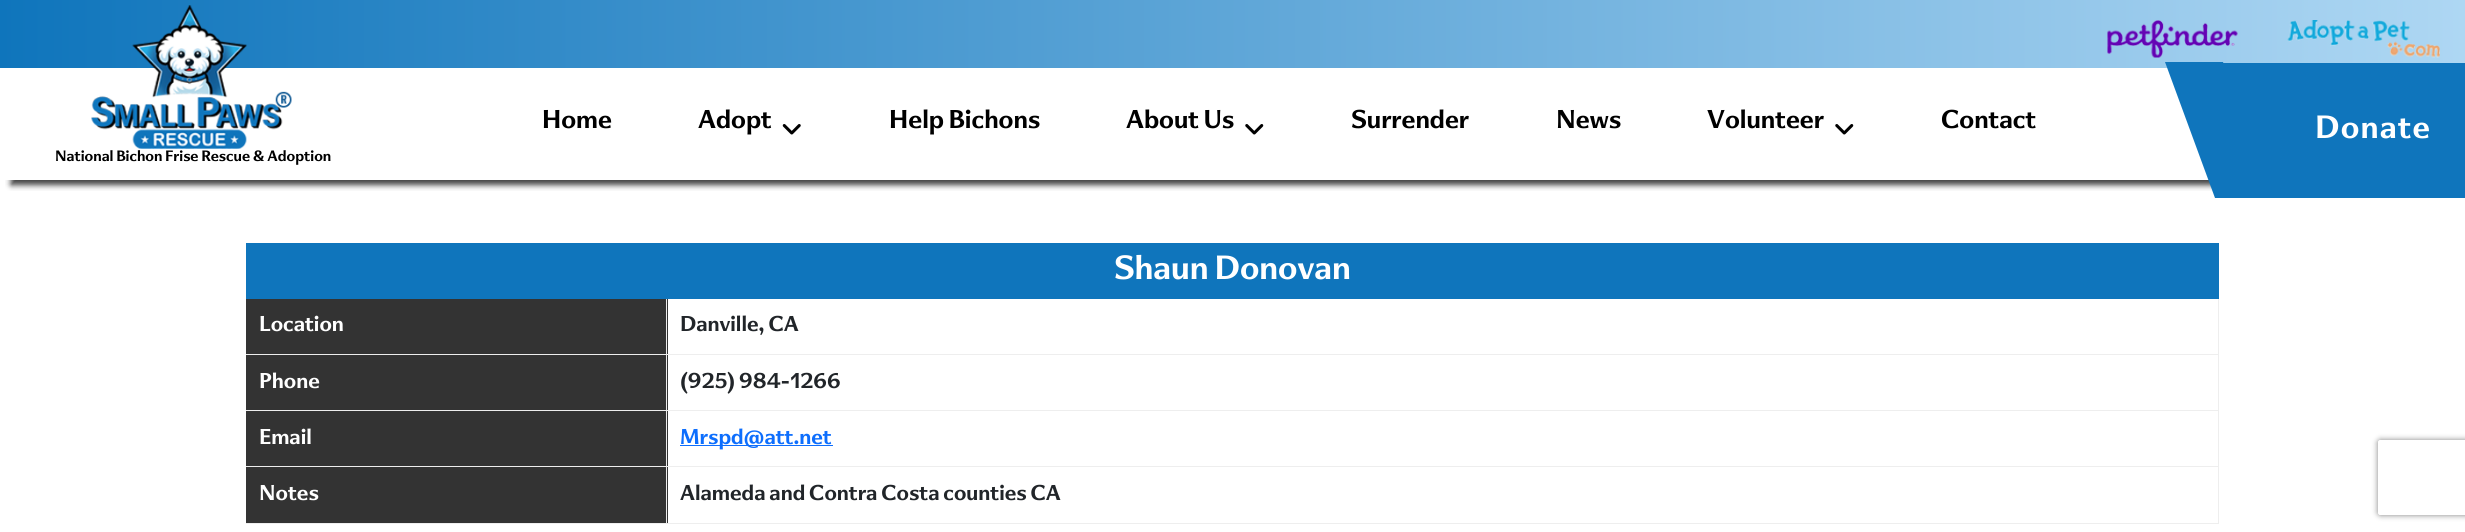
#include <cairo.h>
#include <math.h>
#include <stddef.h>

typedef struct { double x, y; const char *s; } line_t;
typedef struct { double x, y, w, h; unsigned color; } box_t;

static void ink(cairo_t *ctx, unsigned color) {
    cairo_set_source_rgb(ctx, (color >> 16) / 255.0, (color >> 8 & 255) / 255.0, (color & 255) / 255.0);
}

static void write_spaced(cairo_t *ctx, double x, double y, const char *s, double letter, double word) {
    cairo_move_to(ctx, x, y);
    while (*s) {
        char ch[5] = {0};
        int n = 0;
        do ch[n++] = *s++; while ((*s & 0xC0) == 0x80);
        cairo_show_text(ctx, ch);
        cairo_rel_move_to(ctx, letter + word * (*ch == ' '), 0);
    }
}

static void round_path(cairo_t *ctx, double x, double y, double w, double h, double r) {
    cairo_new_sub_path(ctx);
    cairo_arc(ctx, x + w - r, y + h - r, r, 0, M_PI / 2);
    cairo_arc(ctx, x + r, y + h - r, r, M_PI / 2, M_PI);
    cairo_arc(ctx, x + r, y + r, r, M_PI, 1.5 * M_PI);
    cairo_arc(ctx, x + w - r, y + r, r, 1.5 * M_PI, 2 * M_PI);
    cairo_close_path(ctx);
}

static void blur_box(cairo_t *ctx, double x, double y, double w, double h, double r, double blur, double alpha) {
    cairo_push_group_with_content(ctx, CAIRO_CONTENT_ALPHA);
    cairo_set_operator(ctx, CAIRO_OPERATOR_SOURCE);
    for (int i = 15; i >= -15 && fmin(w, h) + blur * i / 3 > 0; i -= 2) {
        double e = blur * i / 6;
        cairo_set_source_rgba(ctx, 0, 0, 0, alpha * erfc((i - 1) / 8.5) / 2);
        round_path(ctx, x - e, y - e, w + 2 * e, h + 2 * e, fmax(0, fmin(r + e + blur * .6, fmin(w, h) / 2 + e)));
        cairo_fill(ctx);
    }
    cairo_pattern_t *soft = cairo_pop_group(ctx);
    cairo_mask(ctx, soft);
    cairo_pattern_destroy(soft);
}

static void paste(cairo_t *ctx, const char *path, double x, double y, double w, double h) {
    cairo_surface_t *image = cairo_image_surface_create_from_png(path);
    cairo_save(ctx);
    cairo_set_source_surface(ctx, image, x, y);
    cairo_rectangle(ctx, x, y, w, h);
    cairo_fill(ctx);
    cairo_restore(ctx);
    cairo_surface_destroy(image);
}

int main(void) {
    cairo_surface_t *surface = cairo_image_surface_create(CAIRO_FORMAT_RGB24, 2465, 532);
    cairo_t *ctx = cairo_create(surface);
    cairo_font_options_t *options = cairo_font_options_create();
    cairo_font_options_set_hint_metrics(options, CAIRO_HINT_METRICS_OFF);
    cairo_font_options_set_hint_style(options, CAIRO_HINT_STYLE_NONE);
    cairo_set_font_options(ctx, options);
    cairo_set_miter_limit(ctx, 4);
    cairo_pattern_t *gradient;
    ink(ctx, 0xFFFFFF);
    cairo_paint(ctx);
    cairo_save(ctx);
    cairo_rectangle(ctx, 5, 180, 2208, 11);
    cairo_clip(ctx);
    ink(ctx, 0x000000);
    blur_box(ctx, 11, 20, 2450, 165, 0, 3, 0.75);
    cairo_restore(ctx);
    gradient = cairo_pattern_create_linear(0, 34, 2465, 34);
    cairo_pattern_add_color_stop_rgba(gradient, 0, 0.059, 0.459, 0.737, 1);
    cairo_pattern_add_color_stop_rgba(gradient, 1, 0.682, 0.843, 0.953, 1);
    cairo_set_source(ctx, gradient);
    cairo_pattern_destroy(gradient);
    cairo_rectangle(ctx, 0, 0, 2465, 68);
    cairo_fill(ctx);
    paste(ctx, "media/1.png", 2107, 20, 131, 38);
    paste(ctx, "media/2.png", 2287, 20, 153, 38);
    cairo_select_font_face(ctx, "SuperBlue", CAIRO_FONT_SLANT_NORMAL, CAIRO_FONT_WEIGHT_BOLD);
    cairo_set_font_size(ctx, 24);
    ink(ctx, 0x000000);
    cairo_move_to(ctx, 542, 128);
    cairo_show_text(ctx, "Home");
    cairo_move_to(ctx, 698, 128);
    cairo_show_text(ctx, "Adopt");
    paste(ctx, "media/3.png", 782, 124, 19, 11);
    cairo_move_to(ctx, 889, 128);
    cairo_show_text(ctx, "Help Bichons");
    cairo_move_to(ctx, 1126, 128);
    cairo_show_text(ctx, "About Us");
    paste(ctx, "media/4.png", 1245, 124, 19, 11);
    {
        static const line_t items[] = {
            {1351, 128, "Surrender"},
            {1556, 128, "News"},
            {1707, 128, "Volunteer"},
        };
        for (size_t i = 0; i < sizeof items / sizeof *items; i++) {
            cairo_move_to(ctx, items[i].x, items[i].y);
            cairo_show_text(ctx, items[i].s);
        }
    }
    paste(ctx, "media/4.png", 1835, 124, 19, 11);
    cairo_move_to(ctx, 1941, 128);
    cairo_show_text(ctx, "Contact");
    ink(ctx, 0x0F75BC);
    cairo_rectangle(ctx, 2223, 63, 242, 135);
    cairo_fill(ctx);
    cairo_new_path(ctx);
    cairo_move_to(ctx, 2165, 62);
    cairo_line_to(ctx, 2223, 62);
    cairo_line_to(ctx, 2272, 198);
    cairo_line_to(ctx, 2215, 198);
    cairo_close_path(ctx);
    cairo_fill(ctx);
    cairo_set_font_size(ctx, 30);
    ink(ctx, 0xFFFFFF);
    write_spaced(ctx, 2315, 138, "Donate", 1.25, 0);
    paste(ctx, "media/5.png", 91, 5, 201, 144);
    cairo_set_font_size(ctx, 14);
    ink(ctx, 0x000000);
    cairo_move_to(ctx, 55, 161);
    cairo_show_text(ctx, "National Bichon Frise Rescue & Adoption");
    ink(ctx, 0x0F75BC);
    cairo_rectangle(ctx, 246, 243, 1973, 56);
    cairo_fill(ctx);
    cairo_set_font_size(ctx, 31.25);
    ink(ctx, 0xFFFFFF);
    cairo_move_to(ctx, 1114, 279);
    cairo_show_text(ctx, "Shaun Donovan");
    {
        static const box_t items[] = {
            {2218, 299, 1, 225, 0xEEEEEE},
            {246, 523, 1973, 1, 0xEEEEEE},
            {246, 299, 422, 55, 0x333333},
            {246, 355, 422, 55, 0x333333},
            {246, 411, 422, 112, 0x333333},
            {666, 466, 1, 58, 0xEEEEEE},
            {666, 466, 1553, 1, 0xEEEEEE},
            {666, 410, 1, 58, 0xEEEEEE},
            {666, 410, 1553, 1, 0xEEEEEE},
            {666, 354, 1, 57, 0xEEEEEE},
            {666, 354, 1553, 1, 0xEEEEEE},
            {666, 299, 1, 56, 0xEEEEEE},
            {246, 354, 422, 1, 0xEEEEEE},
        };
        for (size_t i = 0; i < sizeof items / sizeof *items; i++) {
            ink(ctx, items[i].color);
            cairo_rectangle(ctx, items[i].x, items[i].y, items[i].w, items[i].h);
            cairo_fill(ctx);
        }
    }
    cairo_set_font_size(ctx, 20);
    ink(ctx, 0xFFFFFF);
    cairo_move_to(ctx, 259, 331);
    cairo_show_text(ctx, "Location");
    ink(ctx, 0x212529);
    cairo_move_to(ctx, 680, 331);
    cairo_show_text(ctx, "Danville, CA");
    ink(ctx, 0xEEEEEE);
    cairo_rectangle(ctx, 246, 410, 422, 1);
    cairo_fill(ctx);
    ink(ctx, 0xFFFFFF);
    cairo_move_to(ctx, 259, 388);
    cairo_show_text(ctx, "Phone");
    ink(ctx, 0x212529);
    cairo_move_to(ctx, 680, 388);
    cairo_show_text(ctx, "(925) 984-1266");
    ink(ctx, 0xEEEEEE);
    cairo_rectangle(ctx, 246, 466, 422, 1);
    cairo_fill(ctx);
    ink(ctx, 0xFFFFFF);
    cairo_move_to(ctx, 259, 444);
    cairo_show_text(ctx, "Email");
    ink(ctx, 0x0D6EFD);
    cairo_rectangle(ctx, 680, 445, 153, 1);
    cairo_fill(ctx);
    cairo_move_to(ctx, 680, 444);
    cairo_show_text(ctx, "Mrspd@att.net");
    ink(ctx, 0xFFFFFF);
    cairo_move_to(ctx, 259, 500);
    cairo_show_text(ctx, "Notes");
    ink(ctx, 0x212529);
    cairo_move_to(ctx, 680, 500);
    cairo_show_text(ctx, "Alameda and Contra Costa counties CA");
    cairo_save(ctx);
    cairo_set_fill_rule(ctx, CAIRO_FILL_RULE_EVEN_ODD);
    cairo_new_path(ctx);
    cairo_move_to(ctx, 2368, 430);
    cairo_line_to(ctx, 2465, 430);
    cairo_line_to(ctx, 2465, 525);
    cairo_line_to(ctx, 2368, 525);
    cairo_close_path(ctx);
    cairo_move_to(ctx, 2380.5, 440);
    cairo_line_to(ctx, 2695.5, 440);
    cairo_curve_to(ctx, 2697, 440, 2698, 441, 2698, 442.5);
    cairo_line_to(ctx, 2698, 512.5);
    cairo_curve_to(ctx, 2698, 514, 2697, 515, 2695.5, 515);
    cairo_line_to(ctx, 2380.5, 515);
    cairo_curve_to(ctx, 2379, 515, 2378, 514, 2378, 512.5);
    cairo_line_to(ctx, 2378, 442.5);
    cairo_curve_to(ctx, 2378, 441, 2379, 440, 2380.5, 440);
    cairo_close_path(ctx);
    cairo_clip(ctx);
    ink(ctx, 0x808080);
    blur_box(ctx, 2378, 440, 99, 75, 2.5, 3, 1);
    cairo_restore(ctx);
    cairo_surface_write_to_png(surface, "image.png");
    cairo_font_options_destroy(options);
    cairo_destroy(ctx);
    cairo_surface_destroy(surface);
    return 0;
}
